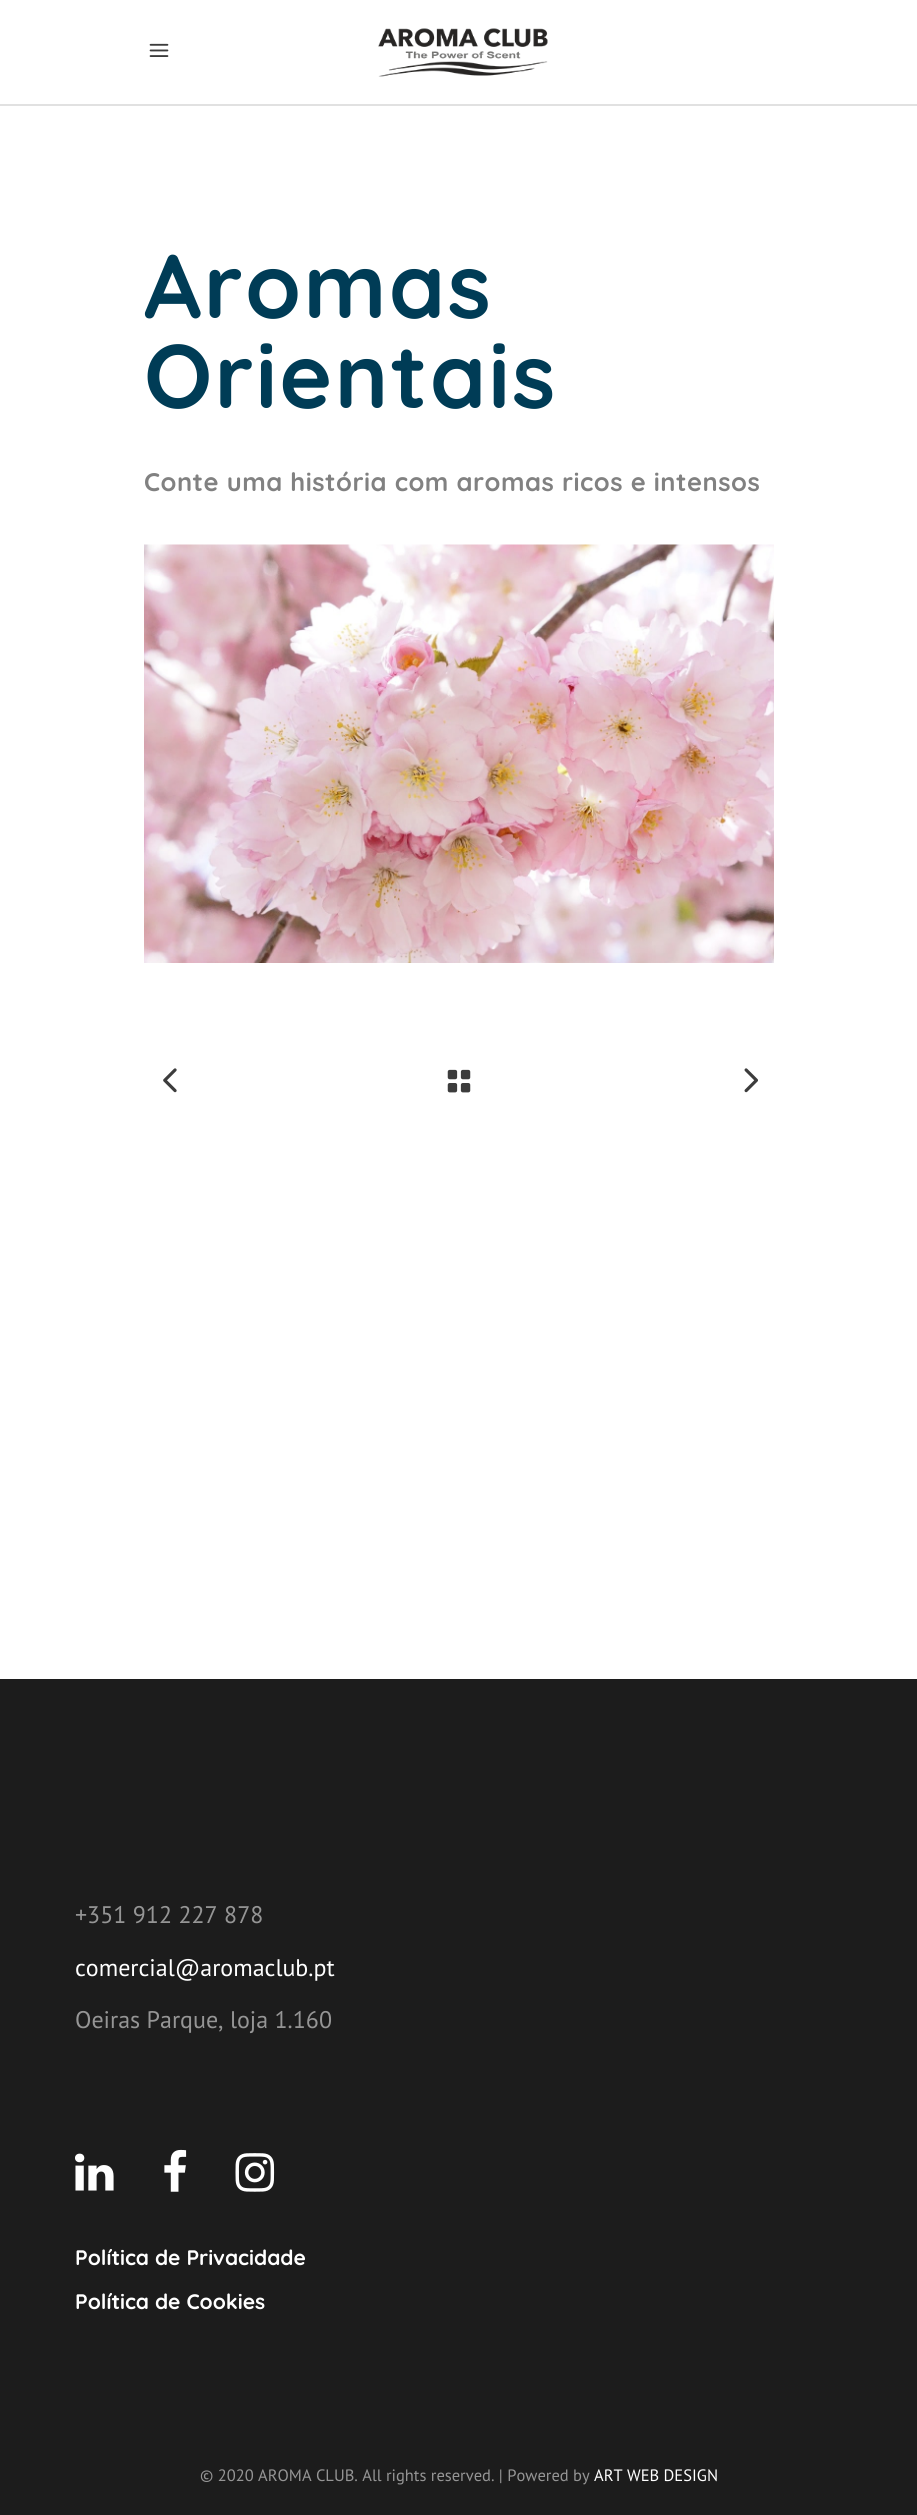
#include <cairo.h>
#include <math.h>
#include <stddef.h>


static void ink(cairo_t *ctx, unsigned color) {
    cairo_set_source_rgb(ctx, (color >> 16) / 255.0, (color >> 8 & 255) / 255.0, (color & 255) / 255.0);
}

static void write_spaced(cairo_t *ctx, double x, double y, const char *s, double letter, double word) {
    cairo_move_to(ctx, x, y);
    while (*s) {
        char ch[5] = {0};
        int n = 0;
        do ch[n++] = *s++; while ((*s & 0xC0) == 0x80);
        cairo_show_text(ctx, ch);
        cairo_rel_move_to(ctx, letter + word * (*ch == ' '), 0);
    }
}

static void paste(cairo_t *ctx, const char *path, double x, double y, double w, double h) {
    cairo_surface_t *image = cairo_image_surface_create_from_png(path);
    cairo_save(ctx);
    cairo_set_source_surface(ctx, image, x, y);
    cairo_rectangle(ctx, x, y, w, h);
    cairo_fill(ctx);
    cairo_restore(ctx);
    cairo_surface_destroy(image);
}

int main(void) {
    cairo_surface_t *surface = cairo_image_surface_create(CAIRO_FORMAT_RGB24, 917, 2515);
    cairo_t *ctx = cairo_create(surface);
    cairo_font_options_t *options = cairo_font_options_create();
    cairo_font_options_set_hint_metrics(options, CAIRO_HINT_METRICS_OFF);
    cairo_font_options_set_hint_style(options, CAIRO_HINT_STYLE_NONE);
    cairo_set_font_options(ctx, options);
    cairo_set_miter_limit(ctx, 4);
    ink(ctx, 0xFFFFFF);
    cairo_paint(ctx);
    ink(ctx, 0xE1E1E1);
    cairo_rectangle(ctx, 0, 104, 917, 2);
    cairo_fill(ctx);
    paste(ctx, "media/1.png", 149, 43, 20, 14);
    paste(ctx, "media/2.png", 378, 28, 170, 49);
    cairo_select_font_face(ctx, "Quicksand", CAIRO_FONT_SLANT_NORMAL, CAIRO_FONT_WEIGHT_BOLD);
    cairo_set_font_size(ctx, 90);
    ink(ctx, 0x003C56);
    write_spaced(ctx, 144, 318, "Aromas", 2.25, 0);
    write_spaced(ctx, 144, 408, "Orientais", 2.25, 0);
    cairo_set_font_size(ctx, 25.5);
    ink(ctx, 0x818181);
    write_spaced(ctx, 144, 491, "Conte uma história com aromas ricos e intensos", 0.5, 0);
    paste(ctx, "media/3.png", 144, 544, 630, 419);
    paste(ctx, "media/4.png", 163, 1068, 14, 25);
    paste(ctx, "media/5.png", 447, 1069, 24, 24);
    paste(ctx, "media/6.png", 744, 1068, 14, 25);
    ink(ctx, 0x1C1C1C);
    cairo_rectangle(ctx, 0, 1679, 917, 836);
    cairo_fill(ctx);
    cairo_select_font_face(ctx, "PT Sans", CAIRO_FONT_SLANT_NORMAL, CAIRO_FONT_WEIGHT_NORMAL);
    cairo_set_font_size(ctx, 24);
    ink(ctx, 0x959595);
    cairo_move_to(ctx, 75, 1923);
    cairo_show_text(ctx, "+351 912 227 878");
    ink(ctx, 0xFFFFFF);
    cairo_move_to(ctx, 75, 1976);
    cairo_show_text(ctx, "comercial@aromaclub.pt");
    ink(ctx, 0x959595);
    cairo_move_to(ctx, 75, 2028);
    cairo_show_text(ctx, "Oeiras Parque, loja 1.160");
    paste(ctx, "media/7.png", 75, 2153, 39, 38);
    paste(ctx, "media/8.png", 164, 2149, 23, 43);
    paste(ctx, "media/9.png", 235, 2153, 40, 39);
    cairo_select_font_face(ctx, "Quicksand", CAIRO_FONT_SLANT_NORMAL, CAIRO_FONT_WEIGHT_BOLD);
    cairo_set_font_size(ctx, 21);
    ink(ctx, 0xFFFFFF);
    cairo_move_to(ctx, 75, 2265);
    cairo_show_text(ctx, "Política de Privacidade");
    cairo_move_to(ctx, 75, 2309);
    cairo_show_text(ctx, "Política de Cookies");
    cairo_select_font_face(ctx, "PT Sans", CAIRO_FONT_SLANT_NORMAL, CAIRO_FONT_WEIGHT_NORMAL);
    cairo_set_font_size(ctx, 16.5);
    ink(ctx, 0x959595);
    cairo_move_to(ctx, 200, 2481);
    cairo_show_text(ctx, "© 2020 AROMA CLUB. All rights reserved. | Powered by");
    ink(ctx, 0xFFFFFF);
    cairo_move_to(ctx, 594, 2481);
    cairo_show_text(ctx, "ART WEB DESIGN");
    cairo_surface_write_to_png(surface, "image.png");
    cairo_font_options_destroy(options);
    cairo_destroy(ctx);
    cairo_surface_destroy(surface);
    return 0;
}
